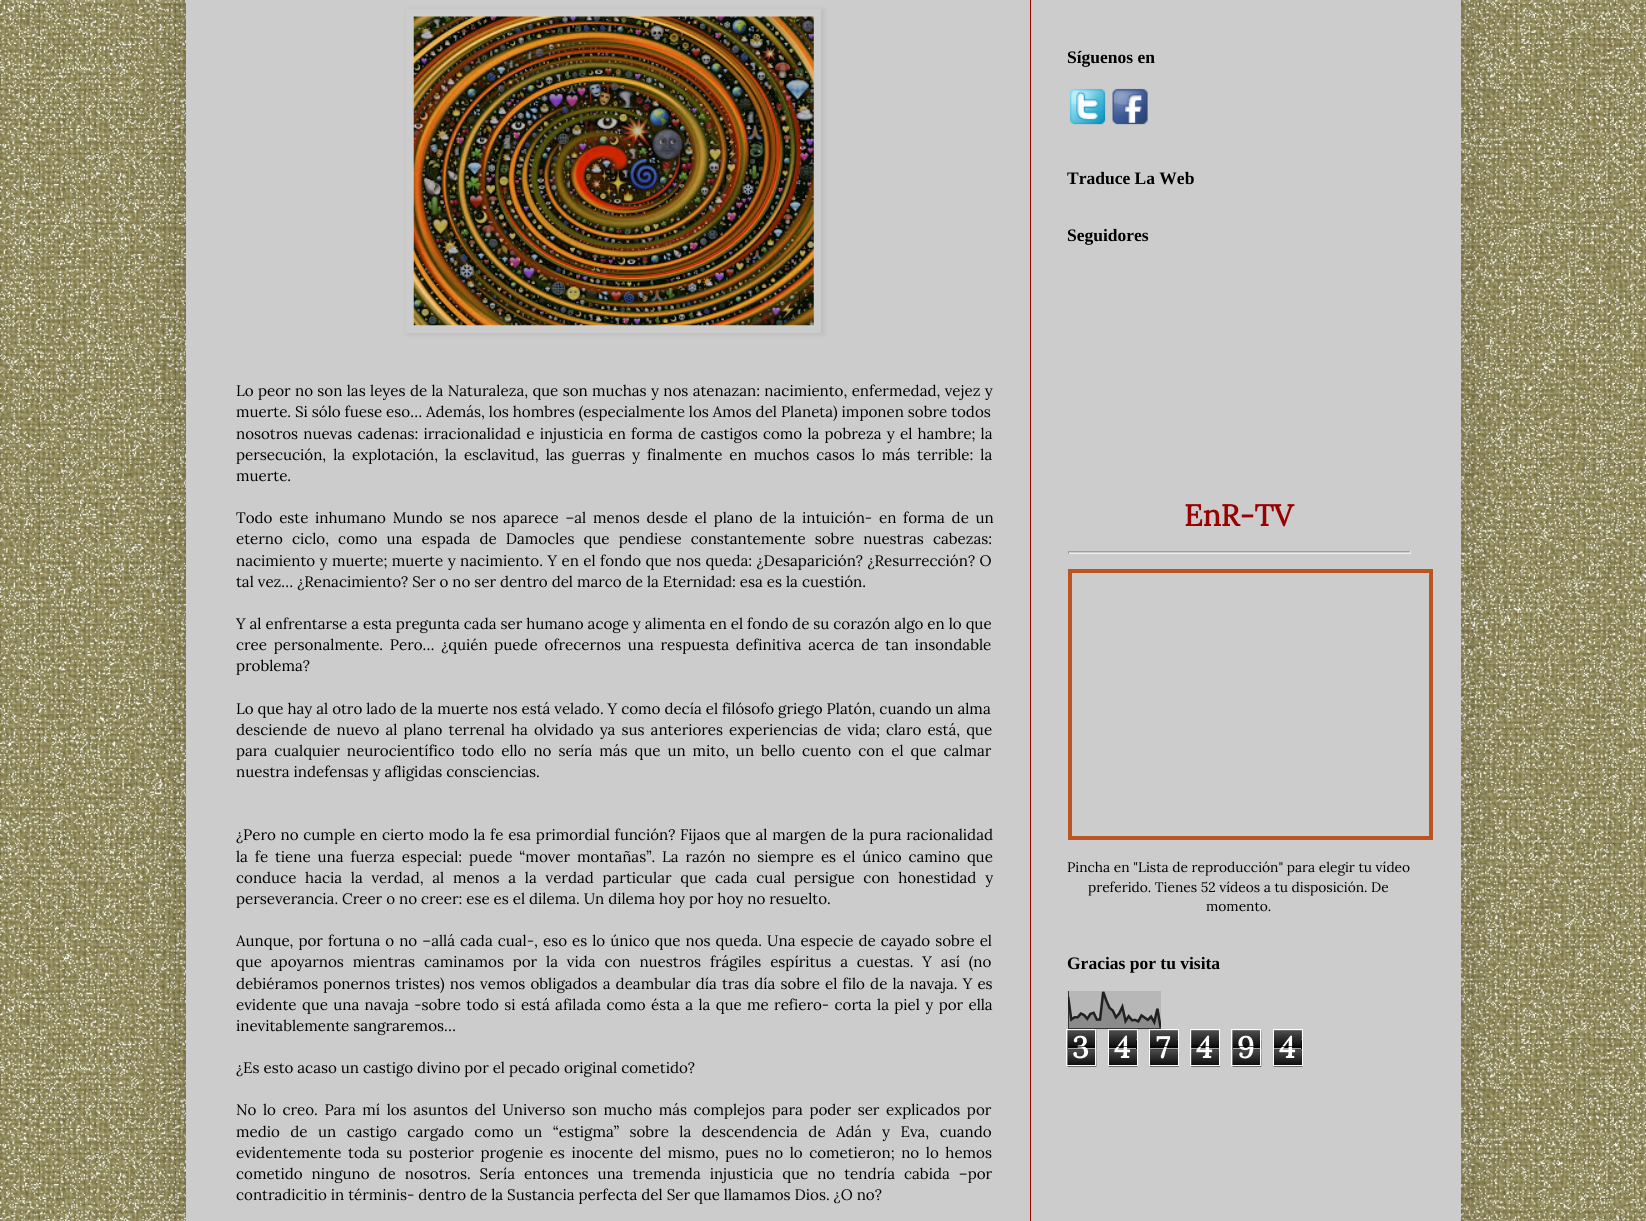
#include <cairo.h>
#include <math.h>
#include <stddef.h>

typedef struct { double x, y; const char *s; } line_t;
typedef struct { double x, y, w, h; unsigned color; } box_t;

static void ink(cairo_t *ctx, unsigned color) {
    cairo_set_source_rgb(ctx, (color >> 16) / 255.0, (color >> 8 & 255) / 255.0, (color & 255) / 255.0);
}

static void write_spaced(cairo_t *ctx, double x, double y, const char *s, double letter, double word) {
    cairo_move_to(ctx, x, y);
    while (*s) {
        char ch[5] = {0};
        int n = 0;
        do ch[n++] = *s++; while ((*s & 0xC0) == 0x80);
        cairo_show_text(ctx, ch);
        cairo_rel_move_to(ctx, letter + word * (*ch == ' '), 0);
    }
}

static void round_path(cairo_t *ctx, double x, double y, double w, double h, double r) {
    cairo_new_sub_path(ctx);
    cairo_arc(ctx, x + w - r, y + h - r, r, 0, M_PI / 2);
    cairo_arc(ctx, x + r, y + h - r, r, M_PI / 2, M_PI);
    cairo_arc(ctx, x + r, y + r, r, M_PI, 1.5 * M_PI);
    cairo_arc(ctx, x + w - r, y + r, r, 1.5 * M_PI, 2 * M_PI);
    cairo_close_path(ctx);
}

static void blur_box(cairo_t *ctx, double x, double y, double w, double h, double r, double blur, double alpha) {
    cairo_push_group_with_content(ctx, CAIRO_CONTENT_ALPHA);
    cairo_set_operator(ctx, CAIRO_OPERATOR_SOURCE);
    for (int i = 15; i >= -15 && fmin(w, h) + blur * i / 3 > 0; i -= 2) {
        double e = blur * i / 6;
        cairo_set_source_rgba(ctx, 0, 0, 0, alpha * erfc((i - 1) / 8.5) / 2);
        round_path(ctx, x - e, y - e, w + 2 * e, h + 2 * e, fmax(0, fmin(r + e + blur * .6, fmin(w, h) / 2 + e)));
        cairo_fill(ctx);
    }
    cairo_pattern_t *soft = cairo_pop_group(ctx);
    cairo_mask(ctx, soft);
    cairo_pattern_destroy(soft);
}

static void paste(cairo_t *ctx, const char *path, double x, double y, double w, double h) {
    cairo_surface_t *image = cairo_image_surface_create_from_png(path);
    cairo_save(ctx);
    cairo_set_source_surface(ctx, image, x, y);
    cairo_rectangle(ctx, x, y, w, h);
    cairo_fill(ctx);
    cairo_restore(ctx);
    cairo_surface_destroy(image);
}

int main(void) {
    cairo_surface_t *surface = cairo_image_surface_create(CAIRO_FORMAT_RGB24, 1646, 1221);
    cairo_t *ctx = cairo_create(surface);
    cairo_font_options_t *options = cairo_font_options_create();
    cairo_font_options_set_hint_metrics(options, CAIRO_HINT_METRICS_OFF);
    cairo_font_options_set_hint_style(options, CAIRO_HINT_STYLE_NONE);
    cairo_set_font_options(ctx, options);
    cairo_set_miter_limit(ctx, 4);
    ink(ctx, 0xFFFFFF);
    cairo_paint(ctx);
    paste(ctx, "media/1.png", 0, 0, 1646, 1221);
    ink(ctx, 0x000000);
    blur_box(ctx, 186, -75, 1275, 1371, 0, 25, 0.15);
    ink(ctx, 0xCCCCCC);
    cairo_rectangle(ctx, 186, 0, 1275, 1221);
    cairo_fill(ctx);
    ink(ctx, 0x990000);
    cairo_rectangle(ctx, 1030, 0, 1, 1221);
    cairo_fill(ctx);
    cairo_save(ctx);
    cairo_set_fill_rule(ctx, CAIRO_FILL_RULE_EVEN_ODD);
    cairo_new_path(ctx);
    cairo_move_to(ctx, 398, 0);
    cairo_line_to(ctx, 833, 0);
    cairo_line_to(ctx, 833, 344);
    cairo_line_to(ctx, 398, 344);
    cairo_close_path(ctx);
    cairo_move_to(ctx, 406, 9);
    cairo_line_to(ctx, 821, 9);
    cairo_line_to(ctx, 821, 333);
    cairo_line_to(ctx, 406, 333);
    cairo_close_path(ctx);
    cairo_clip(ctx);
    ink(ctx, 0x000000);
    blur_box(ctx, 408, 10, 415, 324, 0, 3, 0.1);
    cairo_restore(ctx);
    paste(ctx, "media/2.png", 413, 16, 401, 310);
    cairo_select_font_face(ctx, "Lora", CAIRO_FONT_SLANT_NORMAL, CAIRO_FONT_WEIGHT_NORMAL);
    cairo_set_font_size(ctx, 15.12);
    ink(ctx, 0x000000);
    write_spaced(ctx, 236, 396, "Lo peor no son las leyes de la Naturaleza, que son muchas y nos atenazan: nacimiento, enfermedad, vejez y", 0, 0.4);
    cairo_move_to(ctx, 236, 417);
    cairo_show_text(ctx, "muerte. Si sólo fuese eso… Además, los hombres (especialmente los Amos del Planeta) imponen sobre todos");
    write_spaced(ctx, 236, 439, "nosotros nuevas cadenas: irracionalidad e injusticia en forma de castigos como la pobreza y el hambre; la", 0, 1.25);
    write_spaced(ctx, 236, 460, "persecución, la explotación, la esclavitud, las guerras y finalmente en muchos casos lo más terrible: la", 0, 3);
    cairo_move_to(ctx, 236, 481);
    cairo_show_text(ctx, "muerte.");
    write_spaced(ctx, 236, 523, "Todo este inhumano Mundo se nos aparece –al menos desde el plano de la intuición- en forma de un", 0, 2.75);
    write_spaced(ctx, 236, 544, "eterno ciclo, como una espada de Damocles que pendiese constantemente sobre nuestras cabezas:", 0, 5.1);
    write_spaced(ctx, 236, 566, "nacimiento y muerte; muerte y nacimiento. Y en el fondo que nos queda: ¿Desaparición? ¿Resurrección? O", 0, 0.5);
    cairo_move_to(ctx, 236, 587);
    cairo_show_text(ctx, "tal vez… ¿Renacimiento? Ser o no ser dentro del marco de la Eternidad: esa es la cuestión.");
    cairo_move_to(ctx, 236, 629);
    cairo_show_text(ctx, "Y al enfrentarse a esta pregunta cada ser humano acoge y alimenta en el fondo de su corazón algo en lo que");
    write_spaced(ctx, 236, 650, "cree personalmente. Pero… ¿quién puede ofrecernos una respuesta definitiva acerca de tan insondable", 0, 2.75);
    cairo_move_to(ctx, 236, 671);
    cairo_show_text(ctx, "problema?");
    cairo_move_to(ctx, 236, 714);
    cairo_show_text(ctx, "Lo que hay al otro lado de la muerte nos está velado. Y como decía el filósofo griego Platón, cuando un alma");
    write_spaced(ctx, 236, 735, "desciende de nuevo al plano terrenal ha olvidado ya sus anteriores experiencias de vida; claro está, que", 0, 2.1);
    write_spaced(ctx, 236, 756, "para cualquier neurocientífico todo ello no sería más que un mito, un bello cuento con el que calmar", 0, 3);
    cairo_move_to(ctx, 236, 777);
    cairo_show_text(ctx, "nuestra indefensas y afligidas consciencias.");
    write_spaced(ctx, 236, 840, "¿Pero no cumple en cierto modo la fe esa primordial función? Fijaos que al margen de la pura racionalidad", 0, 0.75);
    write_spaced(ctx, 236, 862, "la fe tiene una fuerza especial: puede “mover montañas”. La razón no siempre es el único camino que", 0, 2.9);
    write_spaced(ctx, 236, 883, "conduce hacia la verdad, al menos a la verdad particular que cada cual persigue con honestidad y", 0, 4.75);
    cairo_move_to(ctx, 236, 904);
    cairo_show_text(ctx, "perseverancia. Creer o no creer: ese es el dilema. Un dilema hoy por hoy no resuelto.");
    write_spaced(ctx, 236, 946, "Aunque, por fortuna o no –allá cada cual-, eso es lo único que nos queda. Una especie de cayado sobre el", 0, 1.05);
    write_spaced(ctx, 236, 967, "que apoyarnos mientras caminamos por la vida con nuestros frágiles espíritus a cuestas. Y así (no", 0, 4.9);
    write_spaced(ctx, 236, 989, "debiéramos ponernos tristes) nos vemos obligados a deambular día tras día sobre el filo de la navaja. Y es", 0, 1.2);
    write_spaced(ctx, 236, 1010, "evidente que una navaja -sobre todo si está afilada como ésta a la que me refiero- corta la piel y por ella", 0, 1.4);
    cairo_move_to(ctx, 236, 1031);
    cairo_show_text(ctx, "inevitablemente sangraremos…");
    cairo_move_to(ctx, 236, 1073);
    cairo_show_text(ctx, "¿Es esto acaso un castigo divino por el pecado original cometido?");
    write_spaced(ctx, 236, 1115, "No lo creo. Para mí los asuntos del Universo son mucho más complejos para poder ser explicados por", 0, 2.6);
    write_spaced(ctx, 236, 1137, "medio de un castigo cargado como un “estigma” sobre la descendencia de Adán y Eva, cuando", 0, 6.5);
    write_spaced(ctx, 236, 1158, "evidentemente toda su posterior progenie es inocente del mismo, pues no lo cometieron; no lo hemos", 0, 2.6);
    write_spaced(ctx, 236, 1179, "cometido ninguno de nosotros. Sería entonces una tremenda injusticia que no tendría cabida –por", 0, 5);
    cairo_move_to(ctx, 236, 1200);
    cairo_show_text(ctx, "contradicitio in términis- dentro de la Sustancia perfecta del Ser que llamamos Dios. ¿O no?");
    cairo_select_font_face(ctx, "Liberation Serif", CAIRO_FONT_SLANT_NORMAL, CAIRO_FONT_WEIGHT_BOLD);
    cairo_set_font_size(ctx, 17.5);
    cairo_move_to(ctx, 1067, 63);
    cairo_show_text(ctx, "Síguenos en");
    paste(ctx, "media/3.png", 1069, 88, 37, 37);
    paste(ctx, "media/4.png", 1112, 88, 36, 37);
    cairo_move_to(ctx, 1067, 184);
    cairo_show_text(ctx, "Traduce La Web");
    cairo_move_to(ctx, 1067, 241);
    cairo_show_text(ctx, "Seguidores");
    cairo_select_font_face(ctx, "Lora", CAIRO_FONT_SLANT_NORMAL, CAIRO_FONT_WEIGHT_BOLD);
    cairo_set_font_size(ctx, 30);
    ink(ctx, 0x990000);
    cairo_move_to(ctx, 1184, 526);
    cairo_show_text(ctx, "EnR-TV");
    {
        static const box_t items[] = {
            {1068, 551, 343, 1, 0x9F9F9F},
            {1410, 551, 1, 3, 0xEEEEEE},
            {1068, 553, 343, 1, 0xEEEEEE},
            {1068, 551, 1, 3, 0x9F9F9F},
        };
        for (size_t i = 0; i < sizeof items / sizeof *items; i++) {
            ink(ctx, items[i].color);
            cairo_rectangle(ctx, items[i].x, items[i].y, items[i].w, items[i].h);
            cairo_fill(ctx);
        }
    }
    cairo_rectangle(ctx, 1070, 571, 361, 267);
    ink(ctx, 0xBB5421);
    cairo_set_line_width(ctx, 4);
    cairo_stroke(ctx);
    cairo_select_font_face(ctx, "Lora", CAIRO_FONT_SLANT_NORMAL, CAIRO_FONT_WEIGHT_NORMAL);
    cairo_set_font_size(ctx, 13.75);
    ink(ctx, 0x000000);
    {
        static const line_t items[] = {
            {1067, 872, "Pincha en \"Lista de reproducción\" para elegir tu vídeo"},
            {1088, 892, "preferido. Tienes 52 vídeos a tu disposición. De"},
            {1206, 911, "momento."},
        };
        for (size_t i = 0; i < sizeof items / sizeof *items; i++) {
            cairo_move_to(ctx, items[i].x, items[i].y);
            cairo_show_text(ctx, items[i].s);
        }
    }
    cairo_select_font_face(ctx, "Liberation Serif", CAIRO_FONT_SLANT_NORMAL, CAIRO_FONT_WEIGHT_BOLD);
    cairo_set_font_size(ctx, 17.5);
    cairo_move_to(ctx, 1067, 969);
    cairo_show_text(ctx, "Gracias por tu visita");
    paste(ctx, "media/5.png", 1068, 991, 93, 38);
    paste(ctx, "media/6.png", 1067, 1030, 30, 37);
    cairo_rectangle(ctx, 1066.5, 1029.5, 29, 36);
    ink(ctx, 0xFFFFFF);
    cairo_set_line_width(ctx, 1);
    cairo_stroke(ctx);
    cairo_select_font_face(ctx, "Lora", CAIRO_FONT_SLANT_NORMAL, CAIRO_FONT_WEIGHT_BOLD);
    cairo_set_font_size(ctx, 30);
    cairo_move_to(ctx, 1072, 1058);
    cairo_show_text(ctx, "3");
    cairo_set_source_rgba(ctx, 0, 0, 0, 0.65);
    cairo_rectangle(ctx, 1068, 1046, 27, 1);
    cairo_fill(ctx);
    cairo_set_source_rgba(ctx, 1, 1, 1, 0.65);
    cairo_rectangle(ctx, 1068, 1048, 27, 1);
    cairo_fill(ctx);
    paste(ctx, "media/7.png", 1108, 1030, 30, 37);
    cairo_rectangle(ctx, 1108.5, 1029.5, 29, 36);
    ink(ctx, 0xFFFFFF);
    cairo_stroke(ctx);
    cairo_move_to(ctx, 1114, 1058);
    cairo_show_text(ctx, "4");
    cairo_set_source_rgba(ctx, 0, 0, 0, 0.65);
    cairo_rectangle(ctx, 1109, 1046, 27, 1);
    cairo_fill(ctx);
    cairo_set_source_rgba(ctx, 1, 1, 1, 0.65);
    cairo_rectangle(ctx, 1109, 1048, 27, 1);
    cairo_fill(ctx);
    paste(ctx, "media/8.png", 1150, 1030, 29, 37);
    cairo_rectangle(ctx, 1149.5, 1029.5, 29, 36);
    ink(ctx, 0xFFFFFF);
    cairo_stroke(ctx);
    cairo_move_to(ctx, 1156, 1058);
    cairo_show_text(ctx, "7");
    cairo_set_source_rgba(ctx, 0, 0, 0, 0.65);
    cairo_rectangle(ctx, 1150, 1046, 28, 1);
    cairo_fill(ctx);
    cairo_set_source_rgba(ctx, 1, 1, 1, 0.65);
    cairo_rectangle(ctx, 1150, 1048, 28, 1);
    cairo_fill(ctx);
    paste(ctx, "media/9.png", 1191, 1030, 29, 37);
    cairo_rectangle(ctx, 1190.5, 1029.5, 29, 36);
    ink(ctx, 0xFFFFFF);
    cairo_stroke(ctx);
    cairo_move_to(ctx, 1196, 1058);
    cairo_show_text(ctx, "4");
    cairo_set_source_rgba(ctx, 0, 0, 0, 0.65);
    cairo_rectangle(ctx, 1191, 1046, 28, 1);
    cairo_fill(ctx);
    cairo_set_source_rgba(ctx, 1, 1, 1, 0.65);
    cairo_rectangle(ctx, 1191, 1048, 28, 1);
    cairo_fill(ctx);
    paste(ctx, "media/6.png", 1232, 1030, 30, 37);
    cairo_rectangle(ctx, 1231.5, 1029.5, 29, 36);
    ink(ctx, 0xFFFFFF);
    cairo_stroke(ctx);
    cairo_move_to(ctx, 1237, 1058);
    cairo_show_text(ctx, "9");
    cairo_set_source_rgba(ctx, 0, 0, 0, 0.65);
    cairo_rectangle(ctx, 1233, 1046, 27, 1);
    cairo_fill(ctx);
    cairo_set_source_rgba(ctx, 1, 1, 1, 0.65);
    cairo_rectangle(ctx, 1233, 1048, 27, 1);
    cairo_fill(ctx);
    paste(ctx, "media/7.png", 1273, 1030, 30, 37);
    cairo_rectangle(ctx, 1273.5, 1029.5, 29, 36);
    ink(ctx, 0xFFFFFF);
    cairo_stroke(ctx);
    cairo_move_to(ctx, 1279, 1058);
    cairo_show_text(ctx, "4");
    cairo_set_source_rgba(ctx, 0, 0, 0, 0.65);
    cairo_rectangle(ctx, 1274, 1046, 27, 1);
    cairo_fill(ctx);
    cairo_set_source_rgba(ctx, 1, 1, 1, 0.65);
    cairo_rectangle(ctx, 1274, 1048, 27, 1);
    cairo_fill(ctx);
    cairo_surface_write_to_png(surface, "image.png");
    cairo_font_options_destroy(options);
    cairo_destroy(ctx);
    cairo_surface_destroy(surface);
    return 0;
}
